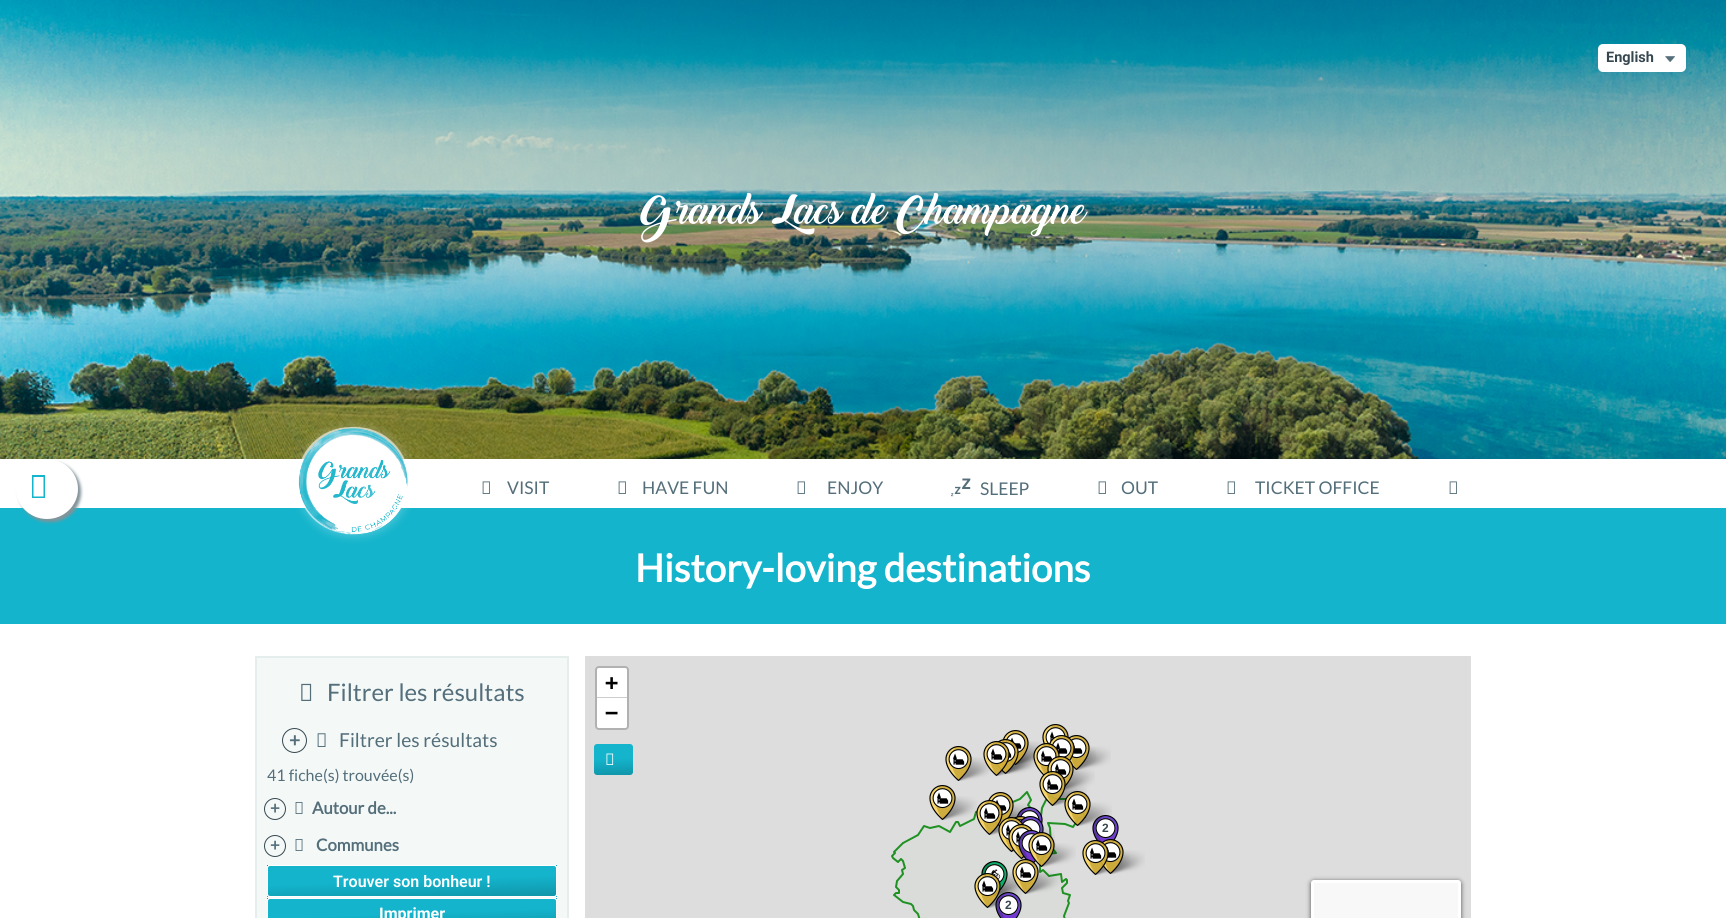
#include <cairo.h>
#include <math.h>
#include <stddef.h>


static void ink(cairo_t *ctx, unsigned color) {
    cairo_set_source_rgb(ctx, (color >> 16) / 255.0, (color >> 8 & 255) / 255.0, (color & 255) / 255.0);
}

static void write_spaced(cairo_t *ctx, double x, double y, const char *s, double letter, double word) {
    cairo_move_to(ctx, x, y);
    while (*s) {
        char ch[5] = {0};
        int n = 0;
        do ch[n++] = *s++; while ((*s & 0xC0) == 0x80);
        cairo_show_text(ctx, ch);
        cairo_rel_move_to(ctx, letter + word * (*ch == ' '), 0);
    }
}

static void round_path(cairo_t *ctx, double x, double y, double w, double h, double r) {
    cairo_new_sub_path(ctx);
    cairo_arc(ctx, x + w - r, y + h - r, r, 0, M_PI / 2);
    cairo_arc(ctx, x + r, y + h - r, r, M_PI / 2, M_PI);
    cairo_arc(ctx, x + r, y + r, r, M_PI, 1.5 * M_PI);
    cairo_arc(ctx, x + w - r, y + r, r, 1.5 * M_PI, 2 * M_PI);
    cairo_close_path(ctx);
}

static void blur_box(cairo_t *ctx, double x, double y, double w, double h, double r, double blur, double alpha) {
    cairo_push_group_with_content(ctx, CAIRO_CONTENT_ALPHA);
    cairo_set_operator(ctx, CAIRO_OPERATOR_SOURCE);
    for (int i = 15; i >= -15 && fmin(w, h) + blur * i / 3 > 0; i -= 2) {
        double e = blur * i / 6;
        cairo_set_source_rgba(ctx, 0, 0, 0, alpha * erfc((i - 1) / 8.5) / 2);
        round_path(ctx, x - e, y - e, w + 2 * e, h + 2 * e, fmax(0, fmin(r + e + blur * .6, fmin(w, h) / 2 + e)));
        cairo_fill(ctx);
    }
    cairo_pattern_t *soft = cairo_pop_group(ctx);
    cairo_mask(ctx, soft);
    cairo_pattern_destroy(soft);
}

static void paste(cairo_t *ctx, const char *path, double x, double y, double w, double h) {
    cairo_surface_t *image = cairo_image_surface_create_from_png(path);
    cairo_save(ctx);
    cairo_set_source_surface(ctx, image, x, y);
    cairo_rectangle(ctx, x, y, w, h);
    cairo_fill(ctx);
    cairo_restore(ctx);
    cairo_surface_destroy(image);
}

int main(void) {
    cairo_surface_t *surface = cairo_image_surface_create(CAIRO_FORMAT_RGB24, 1726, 918);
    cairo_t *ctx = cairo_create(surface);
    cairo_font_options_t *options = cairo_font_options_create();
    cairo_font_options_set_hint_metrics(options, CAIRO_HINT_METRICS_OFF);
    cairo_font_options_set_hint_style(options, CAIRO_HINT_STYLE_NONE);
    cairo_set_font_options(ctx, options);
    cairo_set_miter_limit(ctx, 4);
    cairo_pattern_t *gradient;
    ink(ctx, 0xFFFFFF);
    cairo_paint(ctx);
    paste(ctx, "media/1.png", 0, 0, 1726, 459);
    ink(ctx, 0x13B4CC);
    cairo_rectangle(ctx, 0, 508, 1726, 116);
    cairo_fill(ctx);
    ink(ctx, 0x829399);
    blur_box(ctx, 19, 462, 62, 60, 30, 1.5, 1);
    ink(ctx, 0xFFFFFF);
    cairo_new_path(ctx);
    cairo_move_to(ctx, 47, 459);
    cairo_curve_to(ctx, 64, 459, 78, 472.5, 78, 489);
    cairo_curve_to(ctx, 78, 505.5, 64, 519, 47, 519);
    cairo_curve_to(ctx, 30, 519, 16, 505.5, 16, 489);
    cairo_curve_to(ctx, 16, 472.5, 30, 459, 47, 459);
    cairo_close_path(ctx);
    cairo_fill(ctx);
    ink(ctx, 0x13B4CC);
    cairo_new_path(ctx);
    cairo_move_to(ctx, 32, 498);
    cairo_line_to(ctx, 32, 475);
    cairo_line_to(ctx, 45, 475);
    cairo_line_to(ctx, 45, 498);
    cairo_close_path(ctx);
    cairo_move_to(ctx, 33.5, 496.5);
    cairo_line_to(ctx, 43.5, 496.5);
    cairo_line_to(ctx, 43.5, 477);
    cairo_line_to(ctx, 33.5, 477);
    cairo_close_path(ctx);
    cairo_fill(ctx);
    ink(ctx, 0xFFFFFF);
    round_path(ctx, 1598, 44, 88, 28, 5);
    cairo_fill(ctx);
    paste(ctx, "media/2.png", 1665, 56, 10, 6);
    cairo_select_font_face(ctx, "Roboto", CAIRO_FONT_SLANT_NORMAL, CAIRO_FONT_WEIGHT_BOLD);
    cairo_set_font_size(ctx, 14.5);
    ink(ctx, 0x37474F);
    cairo_move_to(ctx, 1606, 62);
    cairo_show_text(ctx, "English");
    cairo_select_font_face(ctx, "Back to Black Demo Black", CAIRO_FONT_SLANT_NORMAL, CAIRO_FONT_WEIGHT_NORMAL);
    cairo_set_font_size(ctx, 38.4);
    ink(ctx, 0xFFFFFF);
    cairo_move_to(ctx, 640, 224);
    cairo_show_text(ctx, "Grands Lacs de Champagne");
    cairo_save(ctx);
    cairo_set_fill_rule(ctx, CAIRO_FILL_RULE_EVEN_ODD);
    cairo_new_path(ctx);
    cairo_move_to(ctx, 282, 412);
    cairo_line_to(ctx, 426, 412);
    cairo_line_to(ctx, 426, 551);
    cairo_line_to(ctx, 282, 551);
    cairo_close_path(ctx);
    cairo_move_to(ctx, 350.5, 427);
    cairo_line_to(ctx, 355.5, 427);
    cairo_curve_to(ctx, 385, 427, 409, 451, 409, 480.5);
    cairo_curve_to(ctx, 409, 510, 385, 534, 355.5, 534);
    cairo_line_to(ctx, 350.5, 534);
    cairo_curve_to(ctx, 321, 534, 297, 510, 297, 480.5);
    cairo_curve_to(ctx, 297, 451, 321, 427, 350.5, 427);
    cairo_close_path(ctx);
    cairo_clip(ctx);
    ink(ctx, 0xFFFFFF);
    blur_box(ctx, 298, 428, 112, 107, 53.5, 5, 0.3);
    cairo_restore(ctx);
    gradient = cairo_pattern_create_radial(0, 0, 0, 0, 0, 1);
    cairo_pattern_set_matrix(gradient, &(cairo_matrix_t){1.0 / 79, 0, 0, 1.0 / 76, -1.0 * 353 / 79, -1.0 * 481 / 76});
    cairo_pattern_add_color_stop_rgba(gradient, 0.5, 1, 1, 1, 0.9);
    cairo_pattern_add_color_stop_rgba(gradient, 1, 1, 1, 1, 0.3);
    cairo_set_source(ctx, gradient);
    cairo_pattern_destroy(gradient);
    round_path(ctx, 297, 427, 112, 107, 53.5);
    cairo_fill(ctx);
    paste(ctx, "media/3.png", 298, 428, 110, 107);
    paste(ctx, "media/4.png", 482, 481, 8, 13);
    cairo_select_font_face(ctx, "Lato", CAIRO_FONT_SLANT_NORMAL, CAIRO_FONT_WEIGHT_NORMAL);
    cairo_set_font_size(ctx, 17.5);
    ink(ctx, 0x546E7A);
    cairo_move_to(ctx, 507, 494);
    cairo_show_text(ctx, "VISIT");
    paste(ctx, "media/4.png", 618, 481, 8, 13);
    cairo_move_to(ctx, 642, 494);
    cairo_show_text(ctx, "HAVE FUN");
    paste(ctx, "media/4.png", 797, 481, 8, 13);
    cairo_move_to(ctx, 827, 494);
    cairo_show_text(ctx, "ENJOY");
    paste(ctx, "media/5.png", 951, 478, 20, 19);
    cairo_move_to(ctx, 980, 495);
    cairo_show_text(ctx, "SLEEP");
    paste(ctx, "media/4.png", 1098, 481, 8, 13);
    cairo_move_to(ctx, 1121, 494);
    cairo_show_text(ctx, "OUT");
    paste(ctx, "media/4.png", 1227, 481, 8, 13);
    cairo_move_to(ctx, 1255, 494);
    cairo_show_text(ctx, "TICKET OFFICE");
    paste(ctx, "media/4.png", 1449, 481, 8, 13);
    cairo_select_font_face(ctx, "Lato", CAIRO_FONT_SLANT_NORMAL, CAIRO_FONT_WEIGHT_BOLD);
    cairo_set_font_size(ctx, 38.4);
    ink(ctx, 0xFFFFFF);
    cairo_move_to(ctx, 635, 582);
    cairo_show_text(ctx, "History-loving destinations");
    ink(ctx, 0xF4F9F8);
    cairo_rectangle(ctx, 256, 657, 312, 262);
    cairo_fill_preserve(ctx);
    ink(ctx, 0xE6EDED);
    cairo_stroke(ctx);
    paste(ctx, "media/6.png", 301, 683, 11, 18);
    cairo_select_font_face(ctx, "Lato", CAIRO_FONT_SLANT_NORMAL, CAIRO_FONT_WEIGHT_NORMAL);
    cairo_set_font_size(ctx, 24);
    ink(ctx, 0x546E7A);
    cairo_move_to(ctx, 327, 701);
    cairo_show_text(ctx, "Filtrer les résultats");
    cairo_new_path(ctx);
    cairo_arc(ctx, 294.5, 740.5, 12, 0, 2 * M_PI);
    ink(ctx, 0x37474F);
    cairo_set_line_width(ctx, 1);
    cairo_stroke(ctx);
    cairo_select_font_face(ctx, "Lato", CAIRO_FONT_SLANT_NORMAL, CAIRO_FONT_WEIGHT_BOLD);
    cairo_set_font_size(ctx, 19.25);
    ink(ctx, 0x546E7A);
    cairo_move_to(ctx, 289, 747);
    cairo_show_text(ctx, "+");
    paste(ctx, "media/7.png", 317, 733, 9, 14);
    cairo_select_font_face(ctx, "Lato", CAIRO_FONT_SLANT_NORMAL, CAIRO_FONT_WEIGHT_NORMAL);
    cairo_move_to(ctx, 339, 747);
    cairo_show_text(ctx, "Filtrer les résultats");
    cairo_set_font_size(ctx, 16);
    cairo_move_to(ctx, 267, 781);
    cairo_show_text(ctx, "41 fiche(s) trouvée(s)");
    cairo_new_path(ctx);
    cairo_arc(ctx, 275, 809, 10.5, 0, 2 * M_PI);
    ink(ctx, 0x37474F);
    cairo_stroke(ctx);
    cairo_select_font_face(ctx, "Lato", CAIRO_FONT_SLANT_NORMAL, CAIRO_FONT_WEIGHT_BOLD);
    cairo_set_font_size(ctx, 16.75);
    ink(ctx, 0x546E7A);
    cairo_move_to(ctx, 270, 814);
    cairo_show_text(ctx, "+");
    paste(ctx, "media/8.png", 295, 802, 8, 12);
    cairo_move_to(ctx, 312, 814);
    cairo_show_text(ctx, "Autour de...");
    cairo_new_path(ctx);
    cairo_arc(ctx, 275, 846, 10.5, 0, 2 * M_PI);
    ink(ctx, 0x37474F);
    cairo_stroke(ctx);
    ink(ctx, 0x546E7A);
    cairo_move_to(ctx, 270, 851);
    cairo_show_text(ctx, "+");
    paste(ctx, "media/8.png", 295, 839, 8, 12);
    cairo_move_to(ctx, 316, 851);
    cairo_show_text(ctx, "Communes");
    gradient = cairo_pattern_create_linear(128, 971, 123, 831);
    cairo_pattern_add_color_stop_rgba(gradient, 0, 0, 0, 0, 1);
    cairo_pattern_add_color_stop_rgba(gradient, 0.86, 0.075, 0.706, 0.8, 1);
    cairo_set_source(ctx, gradient);
    cairo_pattern_destroy(gradient);
    cairo_rectangle(ctx, 267, 865, 1, 1);
    cairo_fill(ctx);
    gradient = cairo_pattern_create_linear(704, 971, 699, 831);
    cairo_pattern_add_color_stop_rgba(gradient, 0, 0, 0, 0, 1);
    cairo_pattern_add_color_stop_rgba(gradient, 0.86, 0.075, 0.706, 0.8, 1);
    cairo_set_source(ctx, gradient);
    cairo_pattern_destroy(gradient);
    cairo_rectangle(ctx, 556, 865, 1, 1);
    cairo_fill(ctx);
    gradient = cairo_pattern_create_linear(416, 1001, 411, 861);
    cairo_pattern_add_color_stop_rgba(gradient, 0, 0, 0, 0, 1);
    cairo_pattern_add_color_stop_rgba(gradient, 0.86, 0.075, 0.706, 0.8, 1);
    cairo_set_source(ctx, gradient);
    cairo_pattern_destroy(gradient);
    cairo_rectangle(ctx, 268, 866, 288, 30);
    cairo_fill(ctx);
    gradient = cairo_pattern_create_linear(128, 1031, 123, 891);
    cairo_pattern_add_color_stop_rgba(gradient, 0, 0, 0, 0, 1);
    cairo_pattern_add_color_stop_rgba(gradient, 0.86, 0.075, 0.706, 0.8, 1);
    cairo_set_source(ctx, gradient);
    cairo_pattern_destroy(gradient);
    cairo_rectangle(ctx, 267, 896, 1, 1);
    cairo_fill(ctx);
    gradient = cairo_pattern_create_linear(704, 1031, 699, 891);
    cairo_pattern_add_color_stop_rgba(gradient, 0, 0, 0, 0, 1);
    cairo_pattern_add_color_stop_rgba(gradient, 0.86, 0.075, 0.706, 0.8, 1);
    cairo_set_source(ctx, gradient);
    cairo_pattern_destroy(gradient);
    cairo_rectangle(ctx, 556, 896, 1, 1);
    cairo_fill(ctx);
    round_path(ctx, 267.5, 865.5, 289, 31, 2.5);
    ink(ctx, 0xFFFFFF);
    cairo_stroke(ctx);
    cairo_select_font_face(ctx, "Roboto SemiBold", CAIRO_FONT_SLANT_NORMAL, CAIRO_FONT_WEIGHT_NORMAL);
    cairo_set_font_size(ctx, 16);
    cairo_move_to(ctx, 333, 887);
    cairo_show_text(ctx, "Trouver son bonheur !");
    gradient = cairo_pattern_create_linear(128, 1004, 123, 864);
    cairo_pattern_add_color_stop_rgba(gradient, 0, 0, 0, 0, 1);
    cairo_pattern_add_color_stop_rgba(gradient, 0.86, 0.075, 0.706, 0.8, 1);
    cairo_set_source(ctx, gradient);
    cairo_pattern_destroy(gradient);
    cairo_rectangle(ctx, 267, 898, 1, 1);
    cairo_fill(ctx);
    gradient = cairo_pattern_create_linear(704, 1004, 699, 864);
    cairo_pattern_add_color_stop_rgba(gradient, 0, 0, 0, 0, 1);
    cairo_pattern_add_color_stop_rgba(gradient, 0.86, 0.075, 0.706, 0.8, 1);
    cairo_set_source(ctx, gradient);
    cairo_pattern_destroy(gradient);
    cairo_rectangle(ctx, 556, 898, 1, 1);
    cairo_fill(ctx);
    gradient = cairo_pattern_create_linear(416, 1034, 411, 894);
    cairo_pattern_add_color_stop_rgba(gradient, 0, 0, 0, 0, 1);
    cairo_pattern_add_color_stop_rgba(gradient, 0.86, 0.075, 0.706, 0.8, 1);
    cairo_set_source(ctx, gradient);
    cairo_pattern_destroy(gradient);
    cairo_rectangle(ctx, 268, 899, 288, 19);
    cairo_fill(ctx);
    round_path(ctx, 267.5, 898.5, 289, 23, 2.5);
    ink(ctx, 0xFFFFFF);
    cairo_stroke(ctx);
    cairo_select_font_face(ctx, "Roboto", CAIRO_FONT_SLANT_NORMAL, CAIRO_FONT_WEIGHT_BOLD);
    cairo_move_to(ctx, 379, 919);
    cairo_show_text(ctx, "Imprimer");
    ink(ctx, 0xDDDDDD);
    cairo_rectangle(ctx, 585, 656, 886, 262);
    cairo_fill(ctx);
    round_path(ctx, 596, 667, 32, 62, 3);
    ink(ctx, 0xB1B1B1);
    cairo_set_line_width(ctx, 2);
    cairo_stroke(ctx);
    ink(ctx, 0xFFFFFF);
    cairo_new_path(ctx);
    cairo_move_to(ctx, 599, 668);
    cairo_line_to(ctx, 625, 668);
    cairo_curve_to(ctx, 626, 668, 627, 669, 627, 670);
    cairo_line_to(ctx, 627, 698);
    cairo_line_to(ctx, 597, 698);
    cairo_line_to(ctx, 597, 670);
    cairo_curve_to(ctx, 597, 669, 598, 668, 599, 668);
    cairo_close_path(ctx);
    cairo_fill(ctx);
    ink(ctx, 0xCCCCCC);
    cairo_rectangle(ctx, 597, 697, 30, 1);
    cairo_fill(ctx);
    cairo_select_font_face(ctx, "DejaVu Sans Mono", CAIRO_FONT_SLANT_NORMAL, CAIRO_FONT_WEIGHT_BOLD);
    cairo_set_font_size(ctx, 22);
    ink(ctx, 0x000000);
    cairo_move_to(ctx, 605, 690);
    cairo_show_text(ctx, "+");
    ink(ctx, 0xFFFFFF);
    cairo_new_path(ctx);
    cairo_move_to(ctx, 597, 698);
    cairo_line_to(ctx, 627, 698);
    cairo_line_to(ctx, 627, 726);
    cairo_curve_to(ctx, 627, 727, 626, 728, 625, 728);
    cairo_line_to(ctx, 599, 728);
    cairo_curve_to(ctx, 598, 728, 597, 727, 597, 726);
    cairo_close_path(ctx);
    cairo_fill(ctx);
    ink(ctx, 0x000000);
    cairo_move_to(ctx, 605, 720);
    cairo_show_text(ctx, "−");
    ink(ctx, 0x000000);
    blur_box(ctx, 1311, 881, 150, 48, 3, 2.5, 0.65);
    ink(ctx, 0xF8F8F9);
    round_path(ctx, 1312.5, 881.5, 147, 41, 1.5);
    cairo_fill_preserve(ctx);
    ink(ctx, 0xFFFFFF);
    cairo_set_line_width(ctx, 3);
    cairo_stroke(ctx);
    paste(ctx, "media/11.png", 1071, 746, 40, 24);
    paste(ctx, "media/13.png", 1056, 747, 40, 22);
    paste(ctx, "media/10.png", 1056, 735, 34, 24);
    paste(ctx, "media/31.png", 891, 791, 195, 127);
    paste(ctx, "media/19.png", 1047, 782, 40, 24);
    paste(ctx, "media/16.png", 1060, 767, 35, 24);
    paste(ctx, "media/15.png", 1041, 756, 38, 20);
    paste(ctx, "media/9.png", 1012, 741, 34, 24);
    paste(ctx, "media/12.png", 1000, 750, 37, 24);
    paste(ctx, "media/11.png", 953, 757, 40, 24);
    paste(ctx, "media/14.png", 991, 753, 40, 23);
    paste(ctx, "media/17.png", 937, 796, 40, 24);
    paste(ctx, "media/21.png", 984, 811, 34, 24);
    paste(ctx, "media/18.png", 996, 803, 36, 23);
    paste(ctx, "media/20.png", 1072, 802, 40, 24);
    paste(ctx, "media/25.png", 1037, 843, 39, 24);
    paste(ctx, "media/23.png", 1006, 833, 40, 19);
    paste(ctx, "media/22.png", 1017, 828, 38, 23);
    paste(ctx, "media/24.png", 1016, 836, 40, 23);
    paste(ctx, "media/27.png", 1090, 852, 40, 23);
    paste(ctx, "media/26.png", 1105, 850, 40, 24);
    paste(ctx, "media/29.png", 1020, 870, 40, 24);
    paste(ctx, "media/30.png", 982, 884, 40, 24);
    paste(ctx, "media/28.png", 992, 872, 37, 24);
    paste(ctx, "media/32.png", 1002, 730, 27, 35);
    paste(ctx, "media/33.png", 1042, 724, 27, 35);
    paste(ctx, "media/34.png", 994, 739, 25, 35);
    paste(ctx, "media/36.png", 1065, 735, 25, 35);
    paste(ctx, "media/35.png", 1048, 735, 27, 29);
    paste(ctx, "media/37.png", 945, 746, 27, 35);
    paste(ctx, "media/38.png", 983, 741, 27, 35);
    paste(ctx, "media/39.png", 1033, 743, 27, 33);
    paste(ctx, "media/40.png", 1047, 756, 27, 35);
    paste(ctx, "media/37.png", 929, 785, 27, 35);
    paste(ctx, "media/41.png", 987, 792, 27, 34);
    paste(ctx, "media/42.png", 1039, 771, 27, 35);
    paste(ctx, "media/43.png", 1064, 791, 27, 35);
    paste(ctx, "media/44.png", 976, 800, 27, 35);
    paste(ctx, "media/45.png", 1016, 807, 27, 18);
    paste(ctx, "media/46.png", 1010, 816, 16, 35);
    paste(ctx, "media/48.png", 1018, 816, 26, 20);
    paste(ctx, "media/47.png", 998, 817, 27, 35);
    paste(ctx, "media/49.png", 1092, 815, 27, 30);
    cairo_select_font_face(ctx, "Liberation Sans", CAIRO_FONT_SLANT_NORMAL, CAIRO_FONT_WEIGHT_BOLD);
    cairo_set_font_size(ctx, 12);
    ink(ctx, 0x37474F);
    write_spaced(ctx, 1102, 832, "2", -2, 0);
    paste(ctx, "media/50.png", 1008, 824, 25, 35);
    paste(ctx, "media/51.png", 1018, 830, 25, 35);
    paste(ctx, "media/52.png", 981, 861, 27, 35);
    paste(ctx, "media/54.png", 1028, 832, 27, 35);
    paste(ctx, "media/53.png", 1012, 859, 27, 35);
    paste(ctx, "media/56.png", 1100, 839, 24, 35);
    paste(ctx, "media/55.png", 1082, 840, 27, 35);
    paste(ctx, "media/57.png", 974, 873, 27, 35);
    paste(ctx, "media/58.png", 995, 892, 27, 26);
    write_spaced(ctx, 1005, 909, "2", -2, 0);
    gradient = cairo_pattern_create_linear(617, 856, 613, 743);
    cairo_pattern_add_color_stop_rgba(gradient, 0, 0, 0, 0, 1);
    cairo_pattern_add_color_stop_rgba(gradient, 0.86, 0.075, 0.706, 0.8, 1);
    cairo_set_source(ctx, gradient);
    cairo_pattern_destroy(gradient);
    round_path(ctx, 594, 744, 39, 31, 3);
    cairo_fill(ctx);
    paste(ctx, "media/59.png", 606, 753, 8, 12);
    cairo_surface_write_to_png(surface, "image.png");
    cairo_font_options_destroy(options);
    cairo_destroy(ctx);
    cairo_surface_destroy(surface);
    return 0;
}
